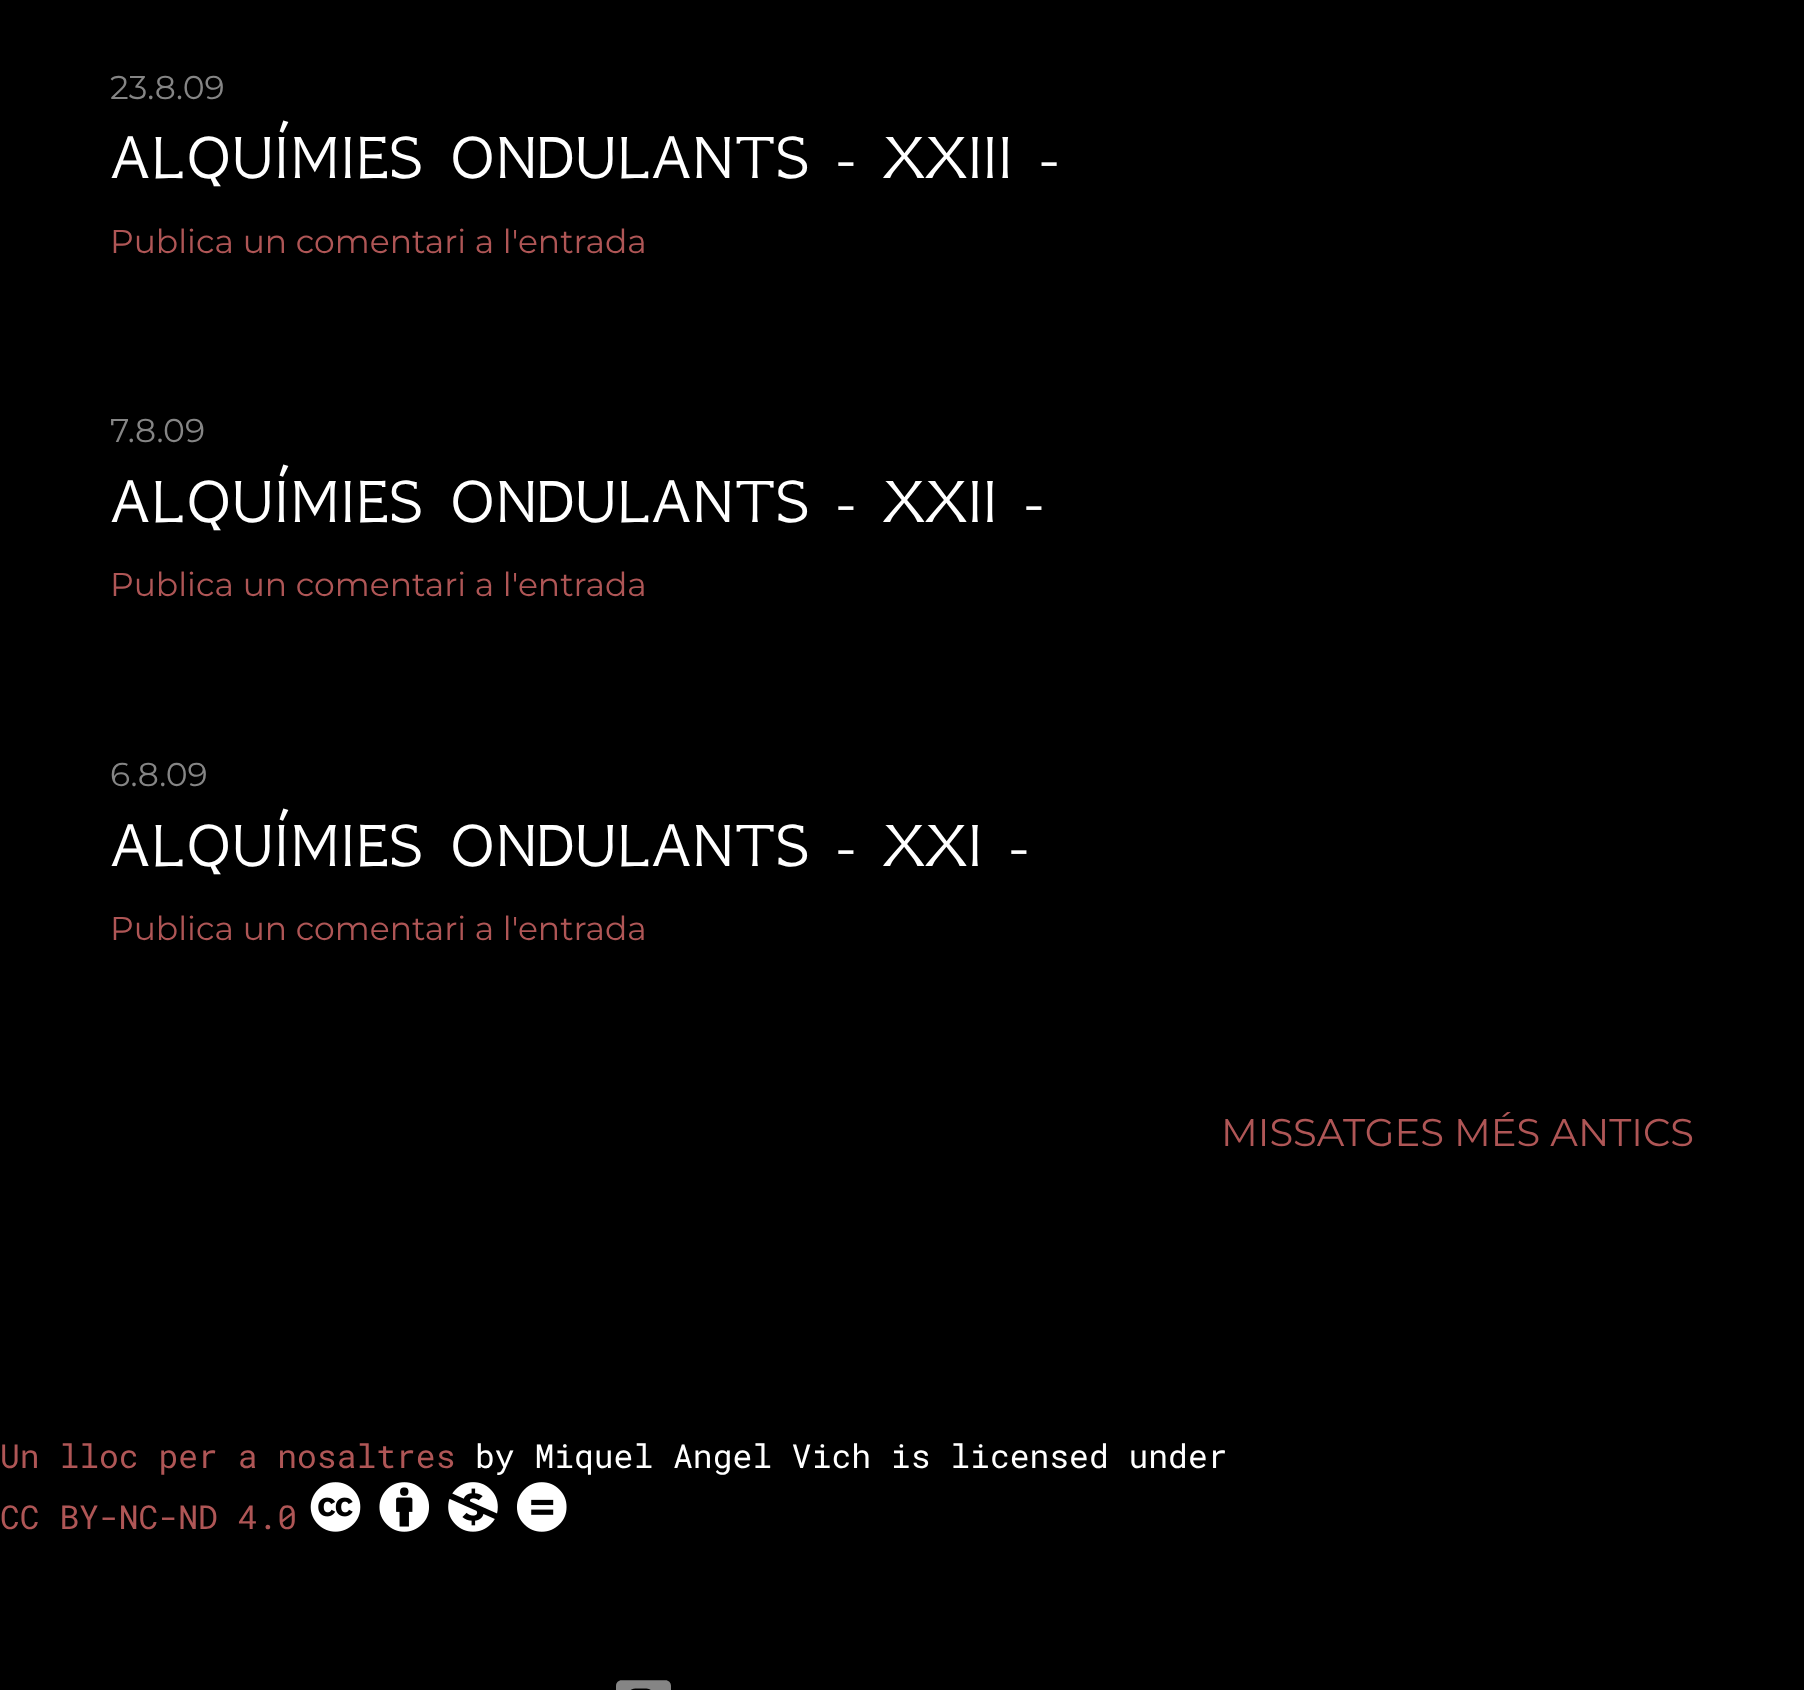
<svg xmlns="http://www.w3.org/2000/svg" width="1804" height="1690">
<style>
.a{font:100 33px Montserrat;fill:#858585}
.b{font:66px GFS Neohellenic;fill:#fff}
.c{font:100 33px Montserrat;fill:#af5656}
.d{font:100 38.5px Montserrat;fill:#af5656}
.e{font:33px Roboto Mono;fill:#af5656}
.f{font:33px Roboto Mono;fill:#fff}
</style>
<rect width="100%" height="100%" fill="#000"/>
<image href="1.png" x="310" y="1482" width="51" height="50"/>
<image href="2.png" x="379" y="1482" width="51" height="50"/>
<image href="3.png" x="448" y="1482" width="50" height="50"/>
<image href="4.png" x="516" y="1482" width="51" height="50"/>
<image href="5.png" x="616" y="1680" width="55" height="10"/>
<text class="a" x="110" y="99">23.8.09</text>
<text class="b" x="110" y="178">ALQUÍMIES ONDULANTS - XXIII -</text>
<text class="c" x="110" y="253">Publica un comentari a l'entrada</text>
<text class="a" x="110" y="442">7.8.09</text>
<text class="b" x="110" y="522">ALQUÍMIES ONDULANTS - XXII -</text>
<text class="c" x="110" y="596">Publica un comentari a l'entrada</text>
<text class="a" x="110" y="786">6.8.09</text>
<text class="b" x="110" y="866">ALQUÍMIES ONDULANTS - XXI -</text>
<text class="c" x="110" y="940">Publica un comentari a l'entrada</text>
<text class="d" x="1221" y="1146">MISSATGES MÉS ANTICS</text>
<text class="e" x="0" y="1468">Un lloc per a nosaltres</text>
<text class="f" x="475" y="1468">by Miquel Angel Vich is licensed under</text>
<text class="e" x="0" y="1529">CC BY-NC-ND 4.0</text>
</svg>
